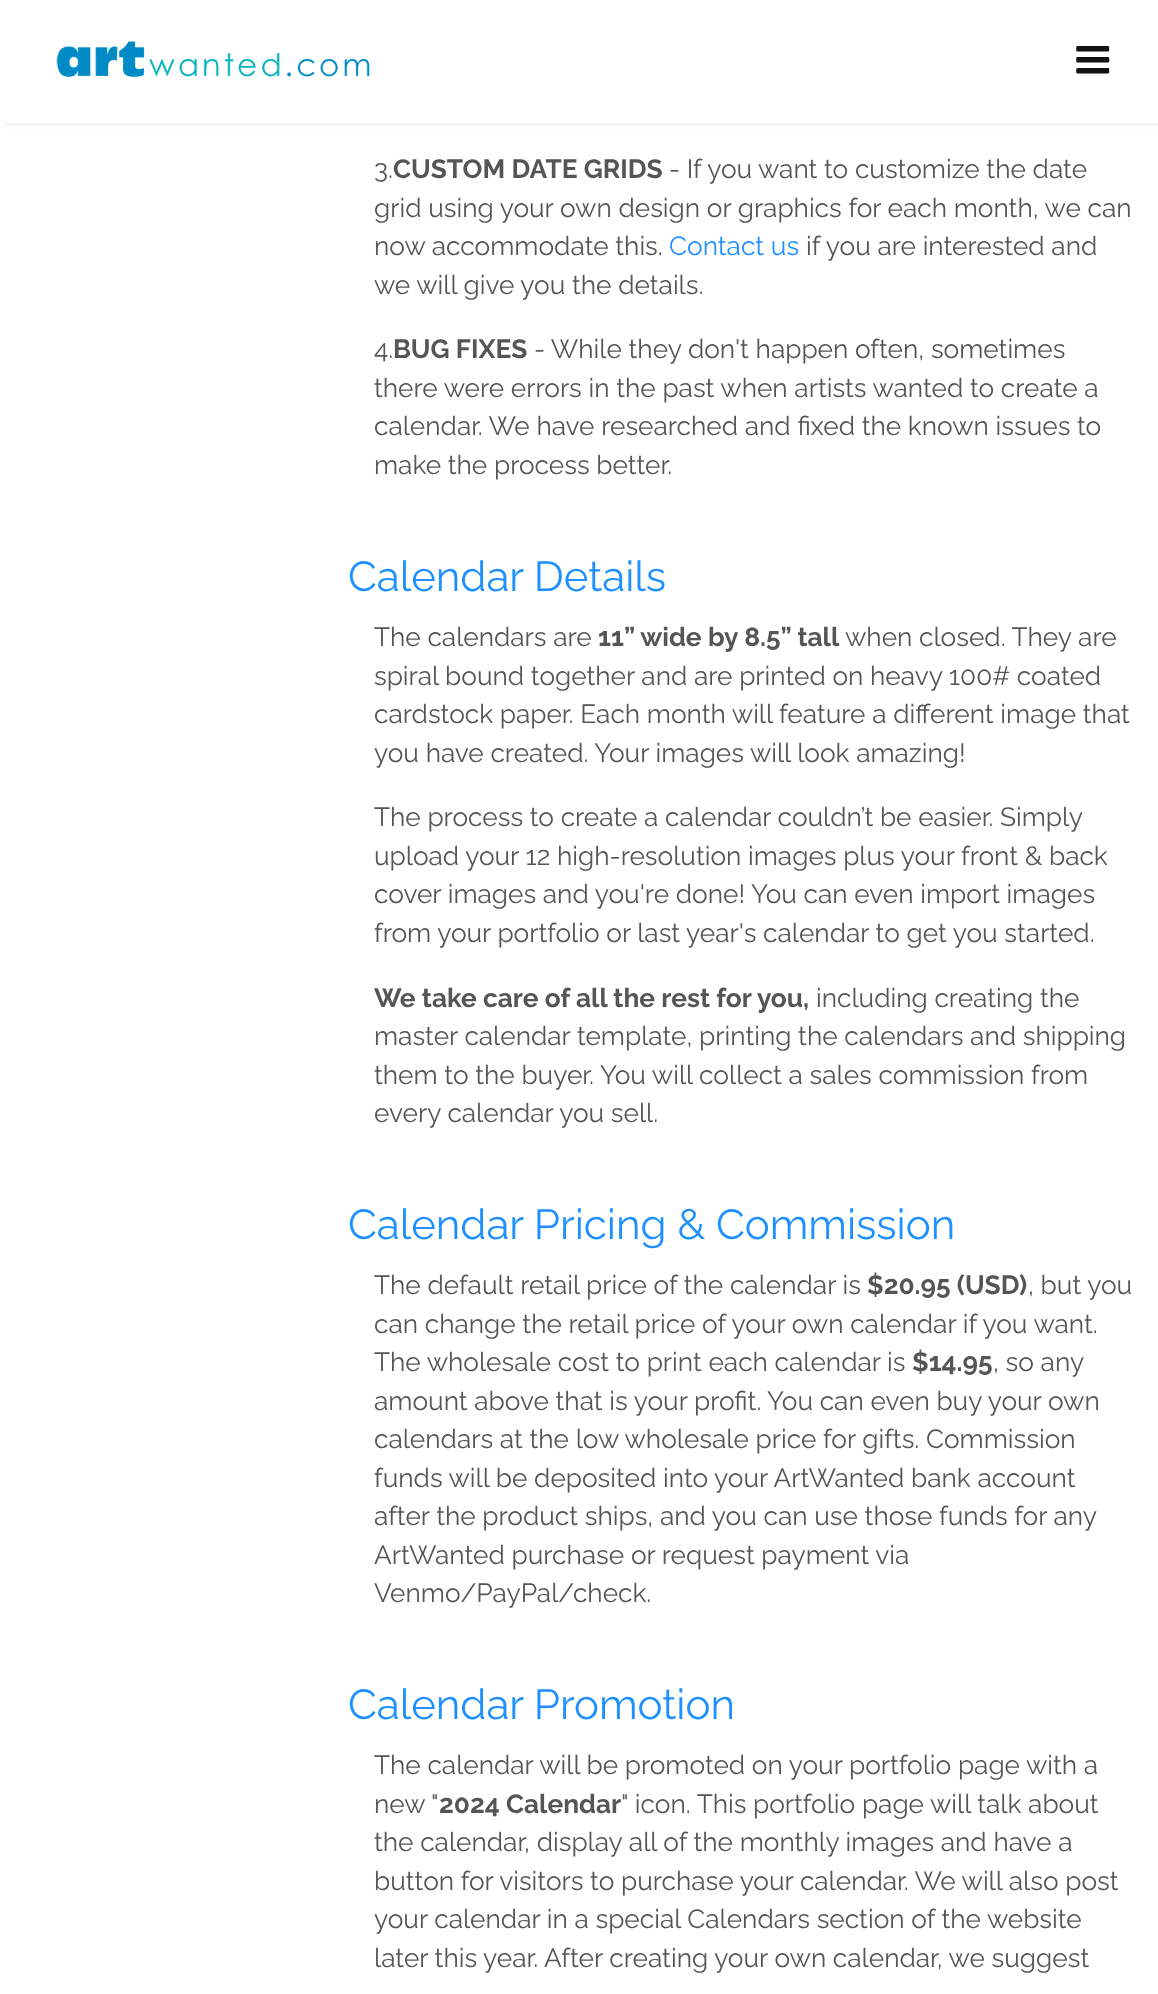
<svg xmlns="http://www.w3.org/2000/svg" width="1158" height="1994">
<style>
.a{font:26.25px Raleway;fill:#555}
.b{font:bold 26.25px Raleway;fill:#555}
.c{font:26.25px Raleway;fill:#1e90ff}
.d{font:42px Raleway;fill:#1e90ff}
</style>
<defs>
<clipPath id="clip1"><path d="M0 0h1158v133h-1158zm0 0h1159v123h-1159z" clip-rule="evenodd"/></clipPath>
</defs>
<rect width="100%" height="100%" fill="#fff"/>
<g clip-path="url(#clip1)">
<path fill="#0000000d" filter="blur(2px)" d="M4 4h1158v122H4z"/>
</g>
<path fill="#ffffffcc" d="M4 122h1154v1H4z"/>
<image href="1.png" x="56" y="41" width="314" height="36"/>
<image href="2.png" x="1076" y="46" width="34" height="28"/>
<text class="a" x="374" y="178">3.</text>
<text class="b" x="393" y="178">CUSTOM DATE GRIDS</text>
<text class="a" x="669" y="178">- If you want to customize the date</text>
<text class="a" x="374" y="217">grid using your own design or graphics for each month, we can</text>
<text class="a" x="374" y="255">now accommodate this.</text>
<text class="c" x="669" y="255">Contact us</text>
<text class="a" x="806" y="255">if you are interested and</text>
<text class="a" x="374" y="294">we will give you the details.</text>
<text class="a" x="374" y="358">4.</text>
<text class="b" x="393" y="358">BUG FIXES</text>
<text class="a" x="534" y="358">- While they don't happen often, sometimes</text>
<text class="a" x="374" y="397">there were errors in the past when artists wanted to create a</text>
<text class="a" x="374" y="435">calendar. We have researched and fixed the known issues to</text>
<text class="a" x="374" y="474">make the process better.</text>
<text class="d" x="348" y="591">Calendar Details</text>
<text class="a" x="374" y="646">The calendars are</text>
<text class="b" x="598" y="646">11” wide by 8.5” tall</text>
<text class="a" x="845" y="646">when closed. They are</text>
<text class="a" x="374" y="685">spiral bound together and are printed on heavy 100# coated</text>
<text class="a" x="374" y="723">cardstock paper. Each month will feature a different image that</text>
<text class="a" x="374" y="762">you have created. Your images will look amazing!</text>
<text class="a" x="374" y="826">The process to create a calendar couldn’t be easier. Simply</text>
<text class="a" x="374" y="865">upload your 12 high-resolution images plus your front &amp; back</text>
<text class="a" x="374" y="903">cover images and you're done!</text>
<text class="a" x="751" y="903">You can even import images</text>
<text class="a" x="374" y="942">from your portfolio or last year's calendar to get you started.</text>
<text class="b" x="374" y="1007">We take care of all the rest for you,</text>
<text class="a" x="816" y="1007">including creating the</text>
<text class="a" x="374" y="1045">master calendar template, printing the calendars and shipping</text>
<text class="a" x="374" y="1084">them to the buyer.</text>
<text class="a" x="600" y="1084">You will collect a sales commission from</text>
<text class="a" x="374" y="1122">every calendar you sell.</text>
<text class="d" x="348" y="1239">Calendar Pricing &amp; Commission</text>
<text class="a" x="374" y="1294">The default retail price of the calendar is</text>
<text class="b" x="867" y="1294">$20.95 (USD)</text>
<text class="a" x="1028" y="1294">, but you</text>
<text class="a" x="374" y="1333">can change the retail price of your own calendar if you want.</text>
<text class="a" x="374" y="1371">The wholesale cost to print each calendar is</text>
<text class="b" x="912" y="1371">$14.95</text>
<text class="a" x="993" y="1371">, so any</text>
<text class="a" x="374" y="1410">amount above that is your profit. You can even buy your own</text>
<text class="a" x="374" y="1448">calendars at the low wholesale price for gifts. Commission</text>
<text class="a" x="374" y="1487">funds will be deposited into your ArtWanted bank account</text>
<text class="a" x="374" y="1525">after the product ships, and you can use those funds for any</text>
<text class="a" x="374" y="1564">ArtWanted purchase or request payment via</text>
<text class="a" x="374" y="1602">Venmo/PayPal/check.</text>
<text class="d" x="348" y="1719">Calendar Promotion</text>
<text class="a" x="374" y="1774">The calendar will be promoted on your portfolio page with a</text>
<text class="a" x="374" y="1813">new "</text>
<text class="b" x="439" y="1813">2024 Calendar</text>
<text class="a" x="621" y="1813">" icon. This portfolio page will talk about</text>
<text class="a" x="374" y="1851">the calendar, display all of the monthly images and have a</text>
<text class="a" x="374" y="1890">button for visitors to purchase your calendar. We will also post</text>
<text class="a" x="374" y="1928">your calendar in a special Calendars section of the website</text>
<text class="a" x="374" y="1967">later this year. After creating your own calendar, we suggest</text>
</svg>
